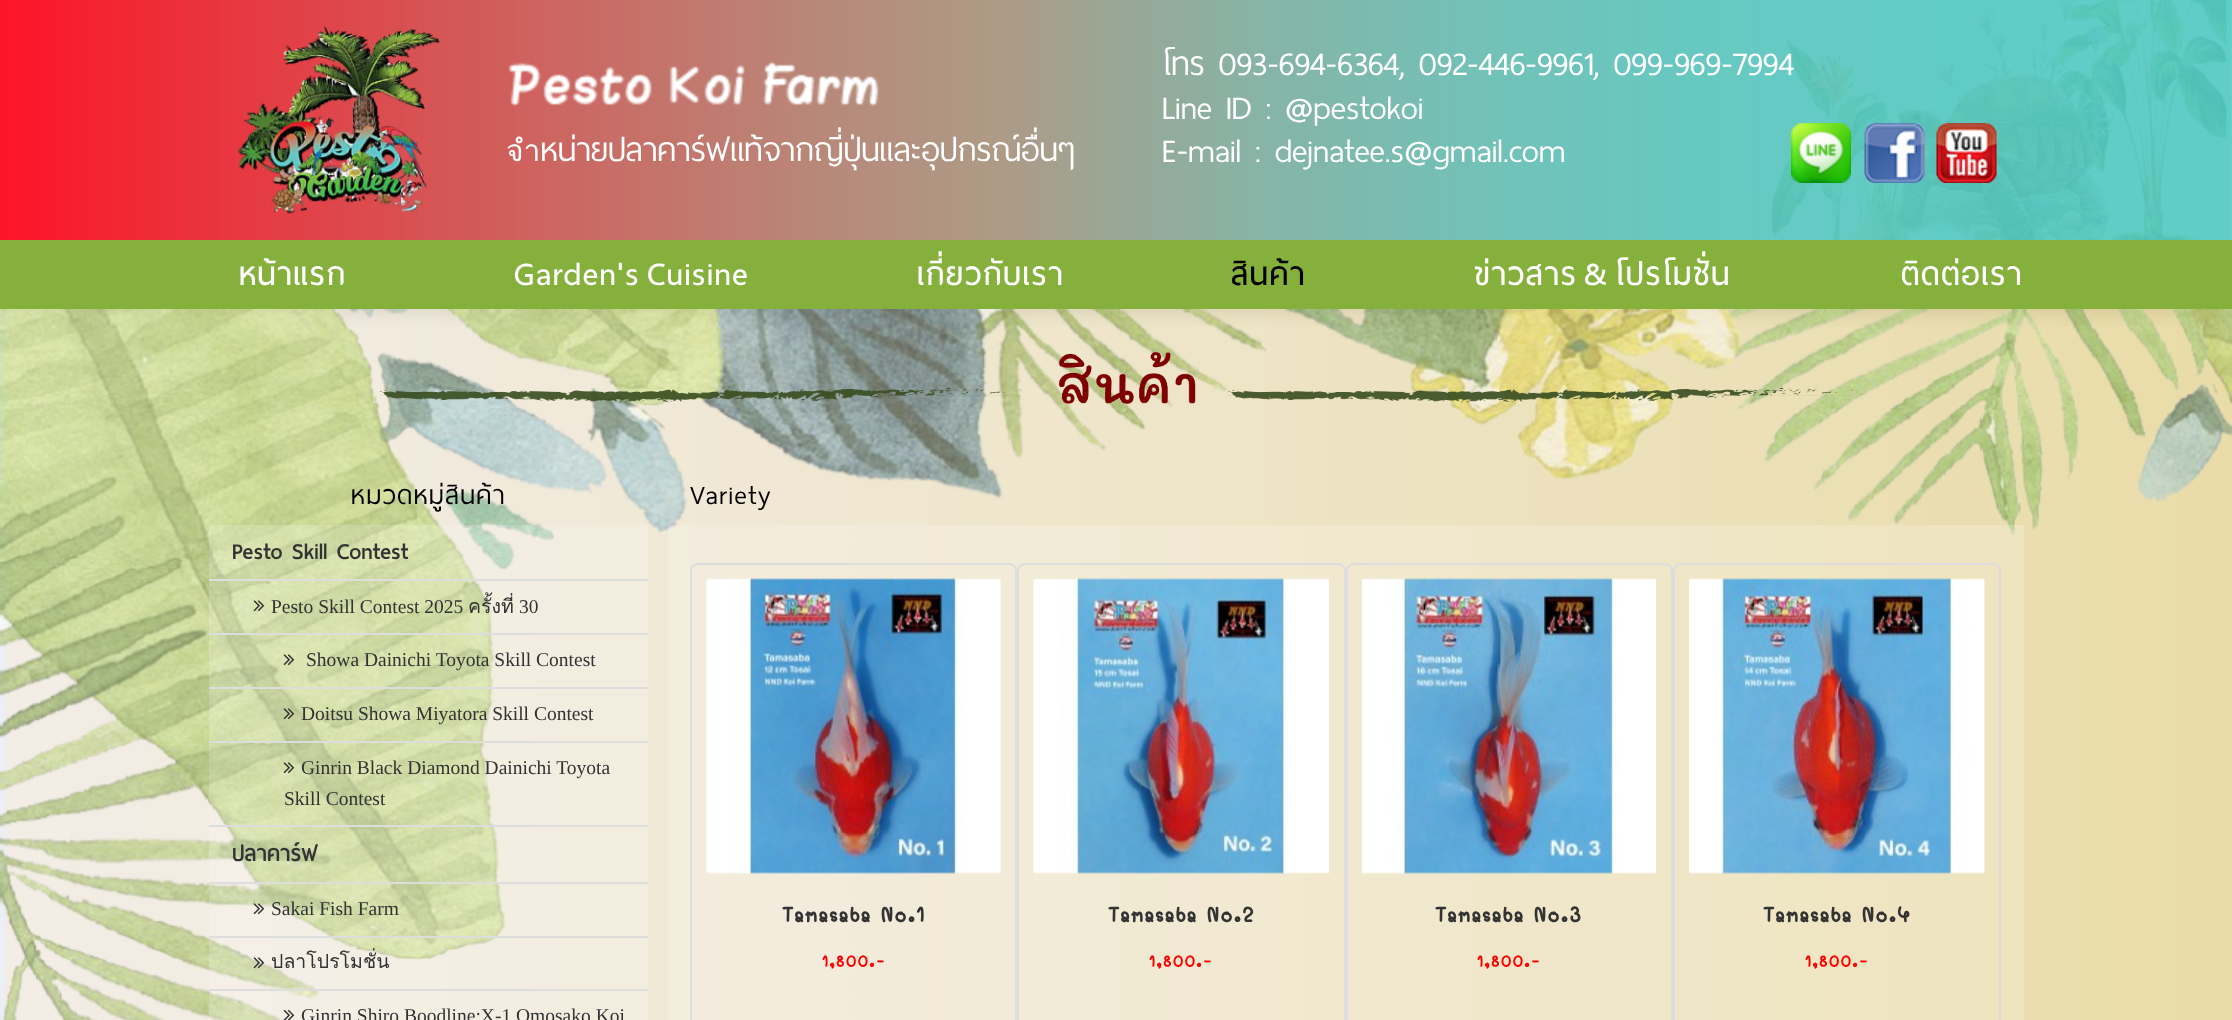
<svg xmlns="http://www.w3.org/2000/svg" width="2232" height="1020">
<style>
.a{font:30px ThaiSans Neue;fill:#fff}
.b{font:600 30px ThaiSans Neue;letter-spacing:1.5px;fill:#fff}
.c{font:600 30px ThaiSans Neue;letter-spacing:1.5px;fill:#000}
.d{font:24px ThaiSans Neue;letter-spacing:1.5px;fill:#000}
.e{font:bold 21px ThaiSans Neue;fill:#333}
.f{font:19.5px Liberation Serif;fill:#333}
.g{font:19.5px Loma;fill:#333}
.h{font:bold 30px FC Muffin;letter-spacing:1.5px;fill:#333}
.i{font:bold 22.5px FC Muffin;letter-spacing:1.5px;fill:#f00}
</style>
<defs>
<clipPath id="clip1"><path d="M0 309h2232v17H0z"/></clipPath>
</defs>
<rect width="100%" height="100%" fill="#eceff4"/>
<image href="1.png" x="0" y="0" width="2232" height="240"/>
<g clip-path="url(#clip1)">
<path fill="#0000004d" filter="blur(11px)" d="M0 0h2232v309H0z"/>
</g>
<image href="2.png" x="237" y="26" width="203" height="188"/>
<image href="3.png" x="508" y="61" width="371" height="46"/>
<image href="4.png" x="1791" y="123" width="60" height="60"/>
<image href="5.png" x="1864" y="123" width="61" height="60"/>
<image href="6.png" x="1936" y="123" width="61" height="60"/>
<path fill="#85b03c" d="M0 240h2232v69H0z"/>
<image href="7.png" x="0" y="309" width="2232" height="711"/>
<image href="8.png" x="379" y="352" width="1474" height="52"/>
<path fill="#ffffff33" d="M209 525h439v495H209z"/>
<path fill="#ddd" d="M209 579h439v2H209z"/>
<path fill="#ddd" d="M209 633h439v2H209z"/>
<image href="9.png" x="253" y="600" width="12" height="12"/>
<path fill="#ddd" d="M209 687h439v2H209z"/>
<image href="10.png" x="283" y="654" width="12" height="12"/>
<path fill="#ddd" d="M209 741h439v2H209z"/>
<image href="11.png" x="283" y="708" width="12" height="12"/>
<path fill="#ddd" d="M209 825h439v2H209z"/>
<image href="12.png" x="283" y="762" width="12" height="12"/>
<path fill="#ddd" d="M209 882h439v2H209z"/>
<path fill="#ddd" d="M209 936h439v2H209z"/>
<image href="13.png" x="253" y="903" width="12" height="12"/>
<path fill="#ddd" d="M209 989h439v2H209z"/>
<image href="14.png" x="253" y="957" width="12" height="12"/>
<image href="15.png" x="283" y="1009" width="12" height="11"/>
<path fill="#ffffff33" d="M668 525h1356v495H668z"/>
<rect fill="none" stroke="#ddd" stroke-width="2" x="691" y="564" width="325" height="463" rx="7"/>
<image href="16.png" x="706" y="578" width="295" height="296"/>
<rect fill="none" stroke="#ddd" stroke-width="2" x="1018" y="564" width="327" height="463" rx="7"/>
<image href="17.png" x="1033" y="578" width="296" height="296"/>
<rect fill="none" stroke="#ddd" stroke-width="2" x="1347" y="564" width="325" height="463" rx="7"/>
<image href="18.png" x="1362" y="578" width="294" height="296"/>
<rect fill="none" stroke="#ddd" stroke-width="2" x="1674" y="564" width="326" height="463" rx="7"/>
<image href="19.png" x="1689" y="578" width="296" height="296"/>
<text class="a" x="506" y="161">จำหน่ายปลาคาร์ฟแท้จากญี่ปุ่นและอุปกรณ์อื่นๆ</text>
<text class="a" x="1162" y="75">โทร 093-694-6364, 092-446-9961, 099-969-7994</text>
<text class="a" x="1162" y="119">Line ID : @pestokoi</text>
<text class="a" x="1162" y="162">E-mail : dejnatee.s@gmail.com</text>
<text class="b" x="239" y="285">หน้าแรก</text>
<text class="b" x="514" y="285" word-spacing="-8">Garden's Cuisine</text>
<text class="b" x="917" y="285">เกี่ยวกับเรา</text>
<text class="c" x="1231" y="285">สินค้า</text>
<text class="b" x="1474" y="285" word-spacing="-9">ข่าวสาร &amp; โปรโมชั่น</text>
<text class="b" x="1901" y="285">ติดต่อเรา</text>
<text class="d" x="351" y="504">หมวดหมู่สินค้า</text>
<text class="e" x="232" y="559">Pesto Skill Contest</text>
<text class="f" x="271" y="613">Pesto Skill Contest 2025</text>
<text class="g" x="468" y="613">ครั้งที่</text>
<text class="f" x="519" y="613">30</text>
<text class="f" x="306" y="666">Showa Dainichi Toyota Skill Contest</text>
<text class="f" x="301" y="720">Doitsu Showa Miyatora Skill Contest</text>
<text class="f" x="301" y="774">Ginrin Black Diamond Dainichi Toyota</text>
<text class="f" x="284" y="805">Skill Contest</text>
<text class="e" x="232" y="861">ปลาคาร์ฟ</text>
<text class="f" x="271" y="915">Sakai Fish Farm</text>
<text class="g" x="271" y="968">ปลาโปรโมชั่น</text>
<text class="f" x="301" y="1022">Ginrin Shiro Boodline:X-1 Omosako Koi</text>
<text class="d" x="690" y="504">Variety</text>
<text class="h" x="782" y="922">Tamasaba No.1</text>
<text class="i" x="822" y="967">1,800.-</text>
<text class="h" x="1108" y="922">Tamasaba No.2</text>
<text class="i" x="1149" y="967">1,800.-</text>
<text class="h" x="1435" y="922">Tamasaba No.3</text>
<text class="i" x="1477" y="967">1,800.-</text>
<text class="h" x="1763" y="922">Tamasaba No.4</text>
<text class="i" x="1805" y="967">1,800.-</text>
</svg>
